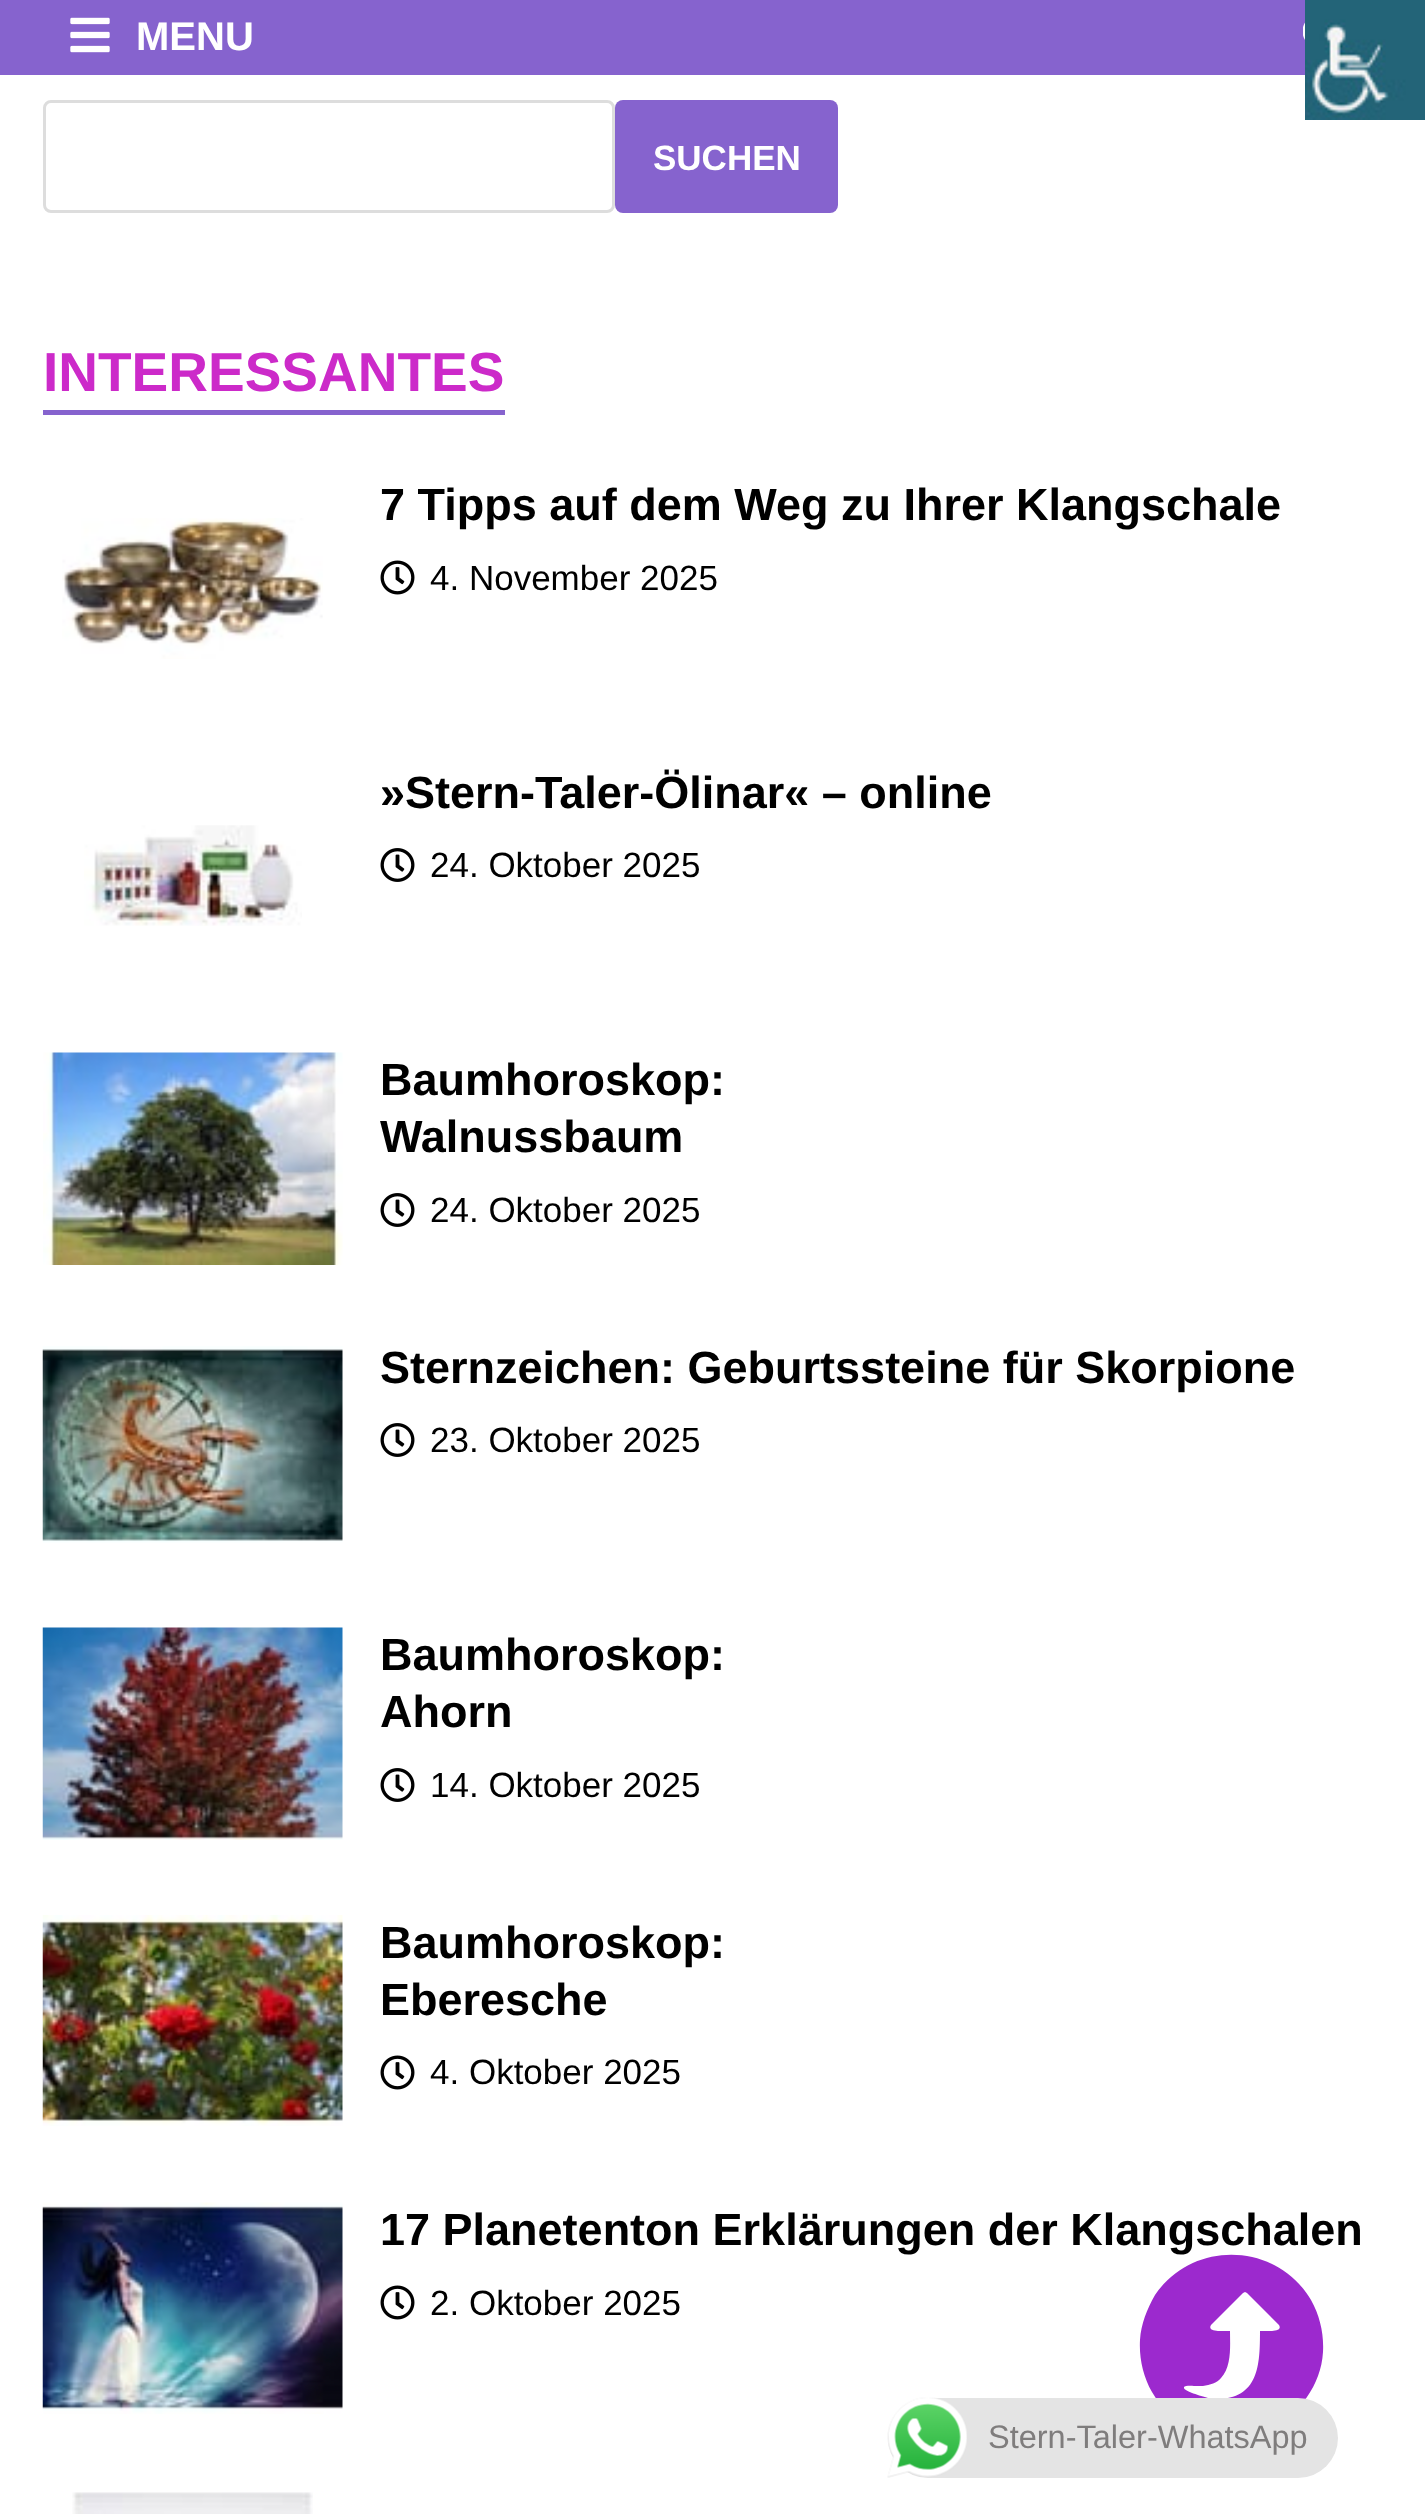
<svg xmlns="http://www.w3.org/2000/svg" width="1425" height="2514">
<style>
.a{font:bold 40px Liberation Sans;fill:#fff}
.b{font:bold 35px Liberation Sans;fill:#fff}
.c{font:bold 55px Liberation Sans;fill:#cc2ac9}
.d{font:bold 45px Liberation Sans;fill:#000}
.e{font:35px Liberation Sans;fill:#000}
.f{font:32.5px Liberation Sans;fill:#7f7d7d}
</style>
<rect width="100%" height="100%" fill="#fff"/>
<path fill="#8663ce" d="M0 0h1305v75H0z"/>
<image href="1.png" x="70" y="17" width="40" height="36"/>
<image href="2.png" x="1303" y="22" width="2" height="18"/>
<rect fill="none" stroke="#ddd" stroke-width="3" x="44.5" y="101.5" width="569" height="110" rx="6.5"/>
<rect fill="#8663ce" x="615" y="100" width="223" height="113" rx="8"/>
<path fill="#8663ce" d="M43 410h462v5H43z"/>
<image href="3.png" x="62" y="518" width="261" height="141"/>
<image href="4.png" x="380" y="560" width="35" height="35"/>
<image href="5.png" x="84" y="825" width="218" height="101"/>
<image href="6.png" x="380" y="848" width="35" height="34"/>
<image href="7.png" x="43" y="1052" width="300" height="213"/>
<image href="6.png" x="380" y="1193" width="35" height="34"/>
<image href="8.png" x="42" y="1346" width="301" height="197"/>
<image href="6.png" x="380" y="1423" width="35" height="34"/>
<image href="9.png" x="42" y="1627" width="301" height="213"/>
<image href="6.png" x="380" y="1768" width="35" height="34"/>
<image href="10.png" x="42" y="1915" width="301" height="211"/>
<image href="4.png" x="380" y="2055" width="35" height="35"/>
<image href="11.png" x="42" y="2202" width="301" height="212"/>
<image href="4.png" x="380" y="2285" width="35" height="35"/>
<image href="12.png" x="72" y="2492" width="241" height="22"/>
<image href="13.png" x="1305" y="0" width="120" height="120"/>
<text class="a" x="136" y="50">MENU</text>
<text class="b" x="653" y="170">SUCHEN</text>
<text class="c" x="43" y="391">INTERESSANTES</text>
<text class="d" x="380" y="520">7 Tipps auf dem Weg zu Ihrer Klangschale</text>
<text class="e" x="430" y="590">4. November 2025</text>
<text class="d" x="380" y="808">»Stern-Taler-Ölinar« – online</text>
<text class="e" x="430" y="877">24. Oktober 2025</text>
<text class="d" x="380" y="1095">Baumhoroskop:</text>
<text class="d" x="380" y="1152">Walnussbaum</text>
<text class="e" x="430" y="1222">24. Oktober 2025</text>
<text class="d" x="380" y="1383">Sternzeichen: Geburtssteine für Skorpione</text>
<text class="e" x="430" y="1452">23. Oktober 2025</text>
<text class="d" x="380" y="1670">Baumhoroskop:</text>
<text class="d" x="380" y="1727">Ahorn</text>
<text class="e" x="430" y="1797">14. Oktober 2025</text>
<text class="d" x="380" y="1958">Baumhoroskop:</text>
<text class="d" x="380" y="2015">Eberesche</text>
<text class="e" x="430" y="2084">4. Oktober 2025</text>
<text class="d" x="380" y="2245">17 Planetenton Erklärungen der Klangschalen</text>
<text class="e" x="430" y="2315">2. Oktober 2025</text>
<path fill="#9c29ce" d="M1311 2300c9 16 13 34 12 52c-1 17-7 32-16 45c-37 56-121 53-155-5c-9-16-13-34-12-52c1-16 7-31 15-45c38-56 122-53 156 5z"/>
<path fill="#fff" d="M1216 2399l-8-1c-7-2-24-7-24-10v-1c1-2 11-1 12-1h7c7-1 14-3 18-8c11-12 9-33 9-47h-8c-2 0-15 1-11-6l32-32l2-1l2 1l32 32c4 7-9 6-11 6h-8c0 34-1 68-44 68z"/>
<rect fill="#e4e4e4" x="888" y="2398" width="450" height="80" rx="40"/>
<image href="14.png" x="887" y="2397" width="80" height="81"/>
<text class="f" x="988" y="2448">Stern-Taler-WhatsApp</text>
</svg>
